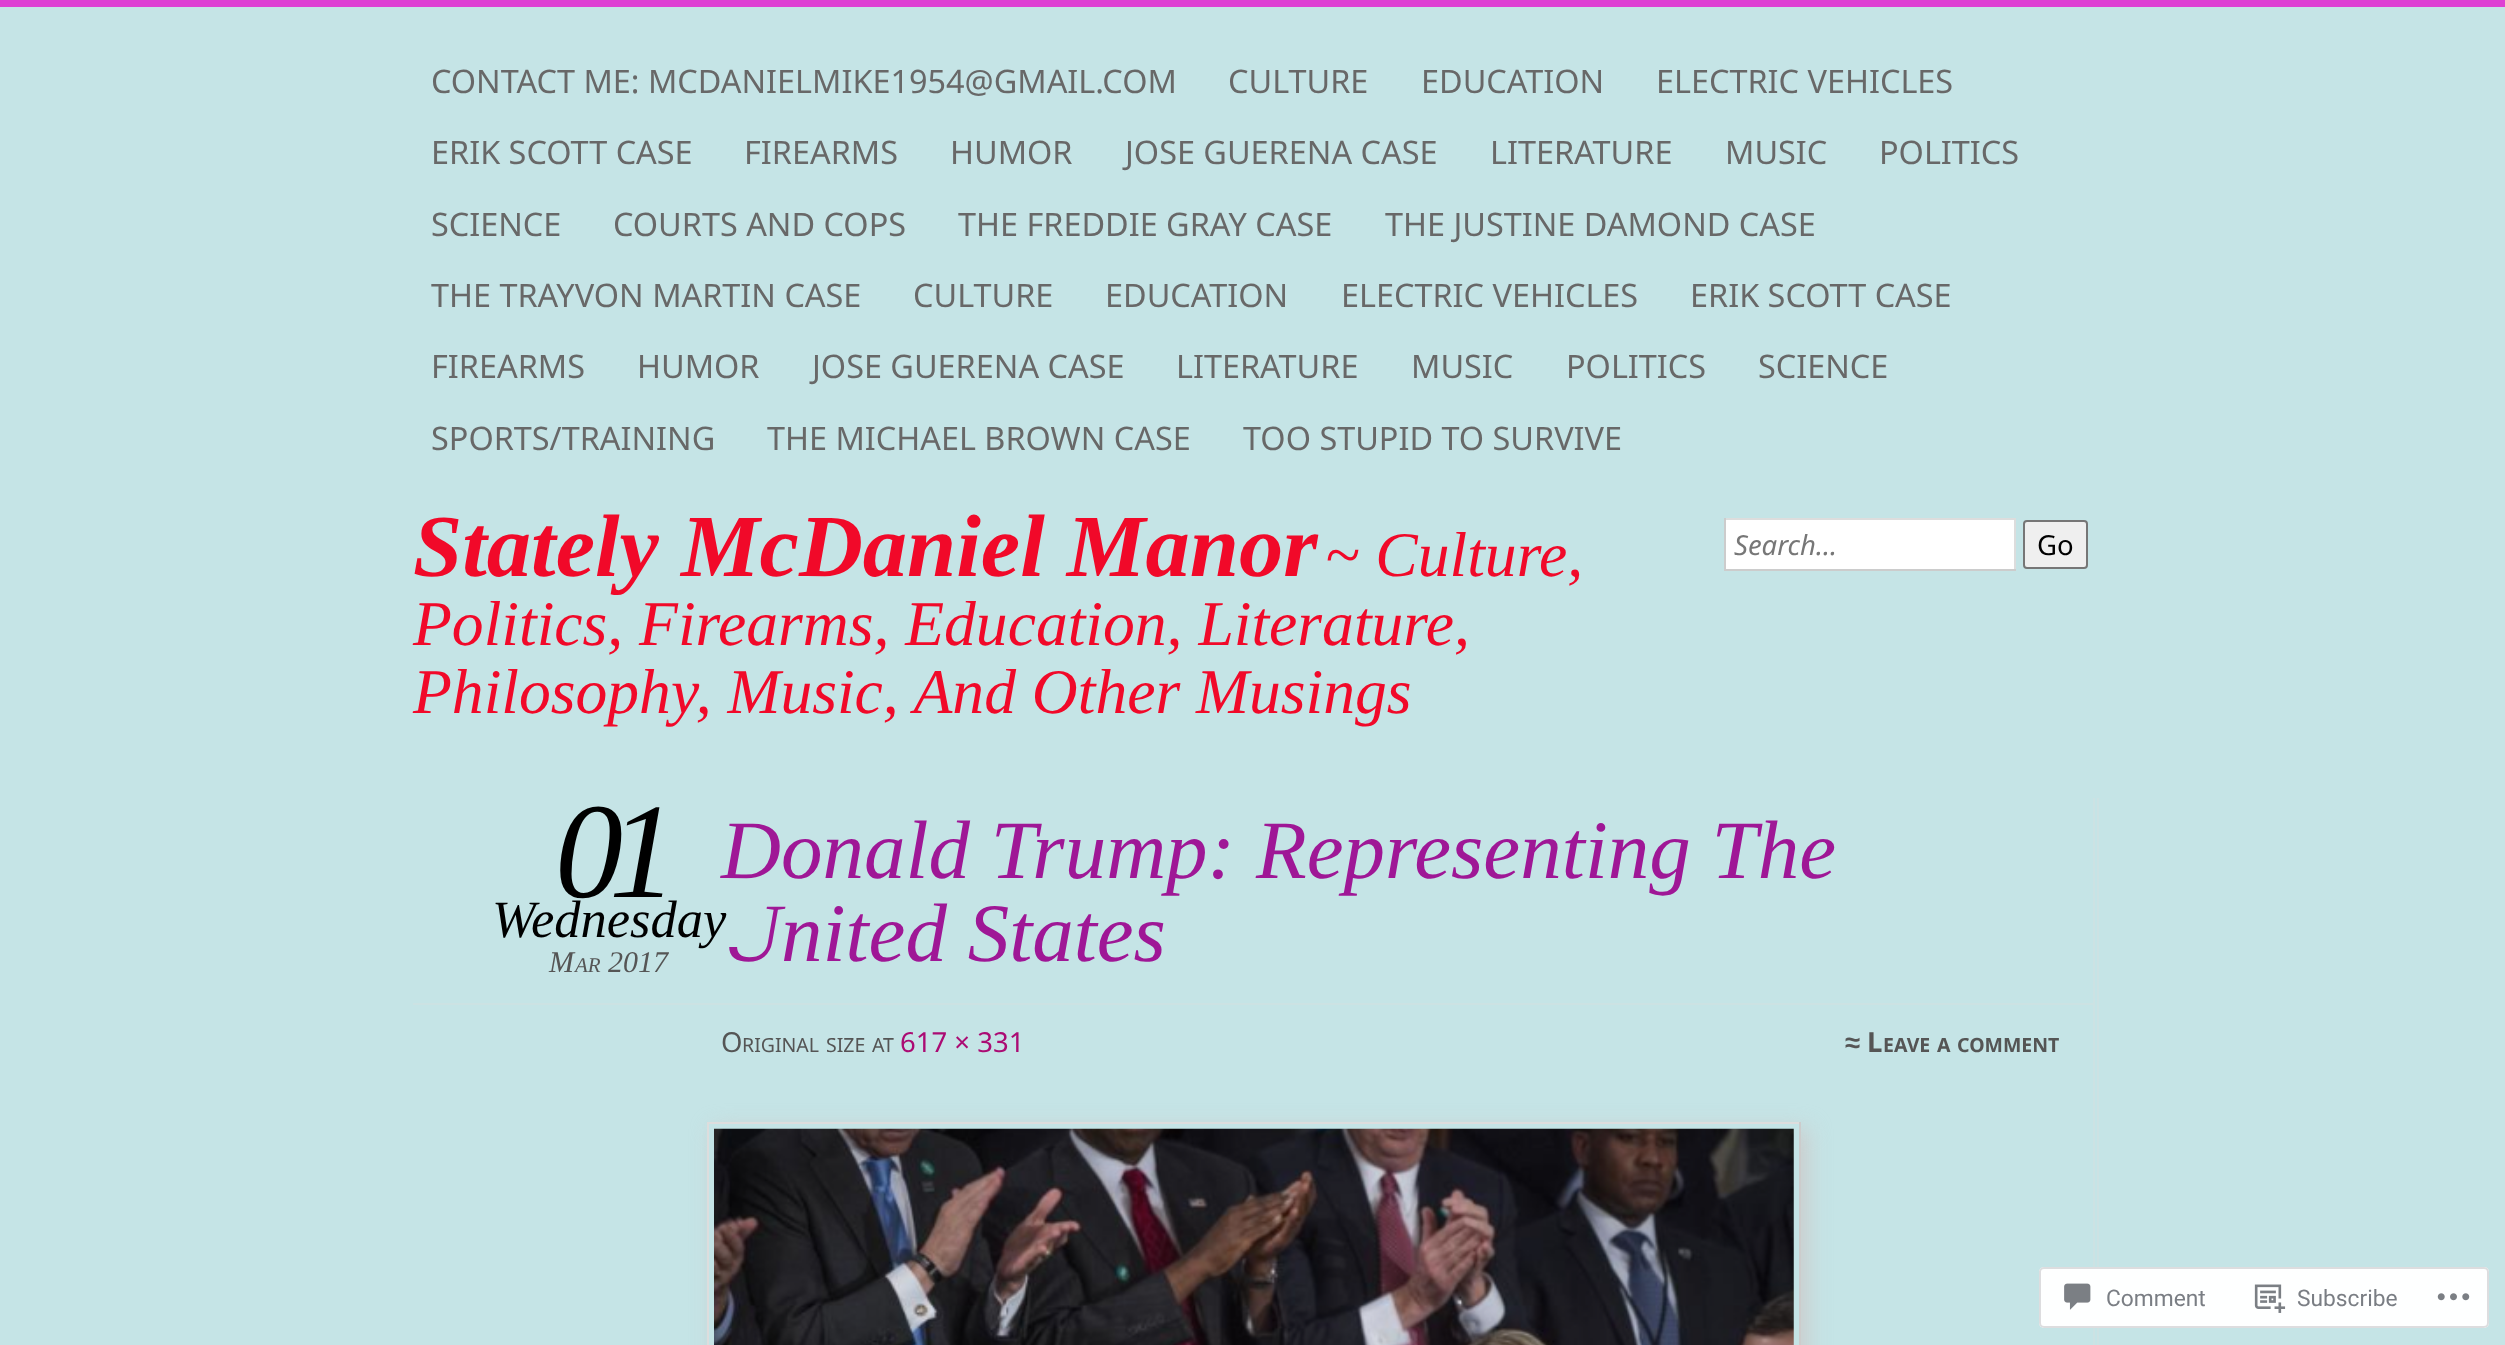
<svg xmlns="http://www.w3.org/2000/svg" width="2505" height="1345">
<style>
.a{font:32.4px Noto Sans;fill:#686868}
.b{font:italic bold 88.5px Liberation Serif;fill:#f10929}
.c{font:italic 63.6px Liberation Serif;fill:#f10929}
.d{font:italic 27.5px Noto Sans;fill:#777}
.e{font:27.5px Noto Sans;fill:#000}
.f{font:italic 136px Liberation Serif;letter-spacing:-14px;fill:#000}
.g{font:italic 52.5px Liberation Serif;fill:#000}
.h{font:italic 30px Liberation Serif;fill:#555}
.i{font:italic 21px Liberation Serif;fill:#555}
.j{font:italic 83px Liberation Serif;fill:#9f1796}
.k{font:27.5px Noto Sans;fill:#555}
.l{font:19.5px Noto Sans;fill:#555}
.m{font:27.5px Noto Sans;fill:#ab0b73}
.n{font:bold 27.5px Liberation Sans;fill:#555}
.o{font:bold 27.5px Noto Sans;fill:#555}
.p{font:bold 19.5px Noto Sans;fill:#555}
.q{font:22.75px Roboto;fill:#7a7e84}
</style>
<defs>
<clipPath id="clip1"><path d="M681 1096h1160v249h-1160zm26 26h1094v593h-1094z" clip-rule="evenodd"/></clipPath>
</defs>
<rect width="100%" height="100%" fill="#c5e4e6"/>
<path fill="#de40d3" d="M0 0h2505v7H0z"/>
<path fill="#fff" d="M1726 520h288v49H1726z"/>
<path fill="#ddd" d="M1724 518h292v2H1724z"/>
<path fill="#ddd" d="M2014 518h2v53H2014z"/>
<path fill="#ccc" d="M1724 569h292v2H1724z"/>
<path fill="#ccc" d="M1724 518h2v53H1724z"/>
<rect fill="#efefef" stroke="#767676" stroke-width="2" x="2024" y="521" width="63" height="47" rx="3"/>
<path fill="#cce2e3" d="M2093 798h2v547H2093z"/>
<path fill="#cce2e3" d="M2097 798h2v547H2097z"/>
<path fill="#cce2e3" d="M413 1003h1680v2H413z"/>
<g clip-path="url(#clip1)">
<path fill="#ccc" filter="blur(10.5px)" d="M714 1129h1094v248H714z"/>
</g>
<path fill="#ddd" d="M707 1122h1094v2H707z"/>
<path fill="#ccc" d="M1799 1122h2v223H1799z"/>
<path fill="#ddd" d="M707 1122h2v223H707z"/>
<image href="1.png" x="714" y="1128" width="1080" height="217"/>
<rect fill="#fffffffa" x="2039" y="1267" width="450" height="61" rx="5"/>
<rect fill="none" stroke="#dcdcdefa" stroke-width="2" x="2040" y="1268" width="448" height="59" rx="4"/>
<image href="2.png" x="2064" y="1283" width="27" height="27"/>
<image href="3.png" x="2254" y="1284" width="32" height="29"/>
<image href="4.png" x="2437" y="1293" width="33" height="8"/>
<text class="a" x="431" y="93">CONTACT ME: MCDANIELMIKE1954@GMAIL.COM</text>
<text class="a" x="1228" y="93">CULTURE</text>
<text class="a" x="1421" y="93">EDUCATION</text>
<text class="a" x="1656" y="93">ELECTRIC VEHICLES</text>
<text class="a" x="431" y="164">ERIK SCOTT CASE</text>
<text class="a" x="744" y="164">FIREARMS</text>
<text class="a" x="950" y="164">HUMOR</text>
<text class="a" x="1125" y="164">JOSE GUERENA CASE</text>
<text class="a" x="1490" y="164">LITERATURE</text>
<text class="a" x="1725" y="164">MUSIC</text>
<text class="a" x="1879" y="164">POLITICS</text>
<text class="a" x="431" y="236">SCIENCE</text>
<text class="a" x="613" y="236">COURTS AND COPS</text>
<text class="a" x="958" y="236">THE FREDDIE GRAY CASE</text>
<text class="a" x="1385" y="236">THE JUSTINE DAMOND CASE</text>
<text class="a" x="431" y="307">THE TRAYVON MARTIN CASE</text>
<text class="a" x="913" y="307">CULTURE</text>
<text class="a" x="1105" y="307">EDUCATION</text>
<text class="a" x="1341" y="307">ELECTRIC VEHICLES</text>
<text class="a" x="1690" y="307">ERIK SCOTT CASE</text>
<text class="a" x="431" y="378">FIREARMS</text>
<text class="a" x="637" y="378">HUMOR</text>
<text class="a" x="812" y="378">JOSE GUERENA CASE</text>
<text class="a" x="1176" y="378">LITERATURE</text>
<text class="a" x="1411" y="378">MUSIC</text>
<text class="a" x="1566" y="378">POLITICS</text>
<text class="a" x="1758" y="378">SCIENCE</text>
<text class="a" x="431" y="450">SPORTS/TRAINING</text>
<text class="a" x="767" y="450">THE MICHAEL BROWN CASE</text>
<text class="a" x="1243" y="450">TOO STUPID TO SURVIVE</text>
<text class="b" x="413" y="576">Stately McDaniel Manor</text>
<text class="c" x="1325" y="576">~ Culture,</text>
<text class="c" x="413" y="645">Politics, Firearms, Education, Literature,</text>
<text class="c" x="413" y="713">Philosophy, Music, And Other Musings</text>
<text class="d" x="1734" y="555">Search…</text>
<text class="e" x="2037" y="555">Go</text>
<text class="f" x="555" y="897">01</text>
<text class="g" x="492" y="937">Wednesday</text>
<text class="h" x="549" y="972">M</text>
<text class="i" x="575" y="972">AR</text>
<text class="h" x="608" y="972">2017</text>
<text class="j" x="721" y="878">Donald Trump: Representing The</text>
<text class="j" x="721" y="961">United States</text>
<path fill="#c5e4e6" d="M728 906h23v41H728z"/>
<text class="k" x="721" y="1052">O</text>
<text class="l" x="742" y="1052">RIGINAL</text>
<text class="l" x="826" y="1052">SIZE</text>
<text class="l" x="872" y="1052">AT</text>
<text class="m" x="900" y="1052">617 × 331</text>
<text class="n" x="1845" y="1052">≈</text>
<text class="o" x="1867" y="1052">L</text>
<text class="p" x="1883" y="1052">EAVE</text>
<text class="p" x="1937" y="1052">A</text>
<text class="p" x="1957" y="1052">COMMENT</text>
<text class="q" x="2106" y="1306">Comment</text>
<text class="q" x="2297" y="1306">Subscribe</text>
</svg>
